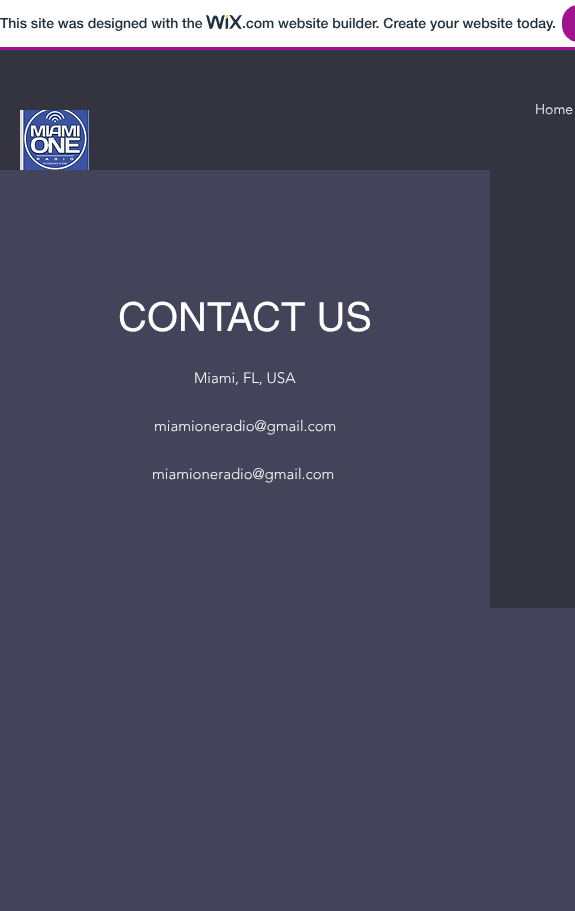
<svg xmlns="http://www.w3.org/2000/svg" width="575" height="911">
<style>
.a{font:500 14px 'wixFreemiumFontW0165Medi';fill:#20303c}
.b{font:300 14px 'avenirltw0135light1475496';fill:#fff}
.c{font:40px helvetica;fill:#fff}
.d{font:300 15px 'avenirltw0135light1475496';fill:#fff}
</style>
<rect width="100%" height="100%" fill="#fff"/>
<path fill="#a0138e" d="M0 47h575v3H0z"/>
<image href="1.png" x="206" y="15" width="36" height="15"/>
<rect fill="#a0138e" stroke="#a0138e" x="562.5" y="5.5" width="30" height="36" rx="16.5"/>
<path fill="#33343f" d="M0 50h575v558H0z"/>
<image href="2.png" x="20" y="110" width="69" height="60"/>
<path fill="#434459" d="M0 170h490v438H0z"/>
<path fill="#434459" d="M0 608h575v303H0z"/>
<text class="a" x="0" y="28">This site was designed with the</text>
<text class="a" x="242" y="28">.com website builder. Create your website today.</text>
<text class="b" x="535" y="114">Home</text>
<text class="c" x="118" y="331">CONTACT US</text>
<text class="d" x="194" y="383">Miami, FL, USA</text>
<text class="d" x="154" y="431">miamioneradio@gmail.com</text>
<text class="d" x="152" y="479">miamioneradio@gmail.com</text>
</svg>
